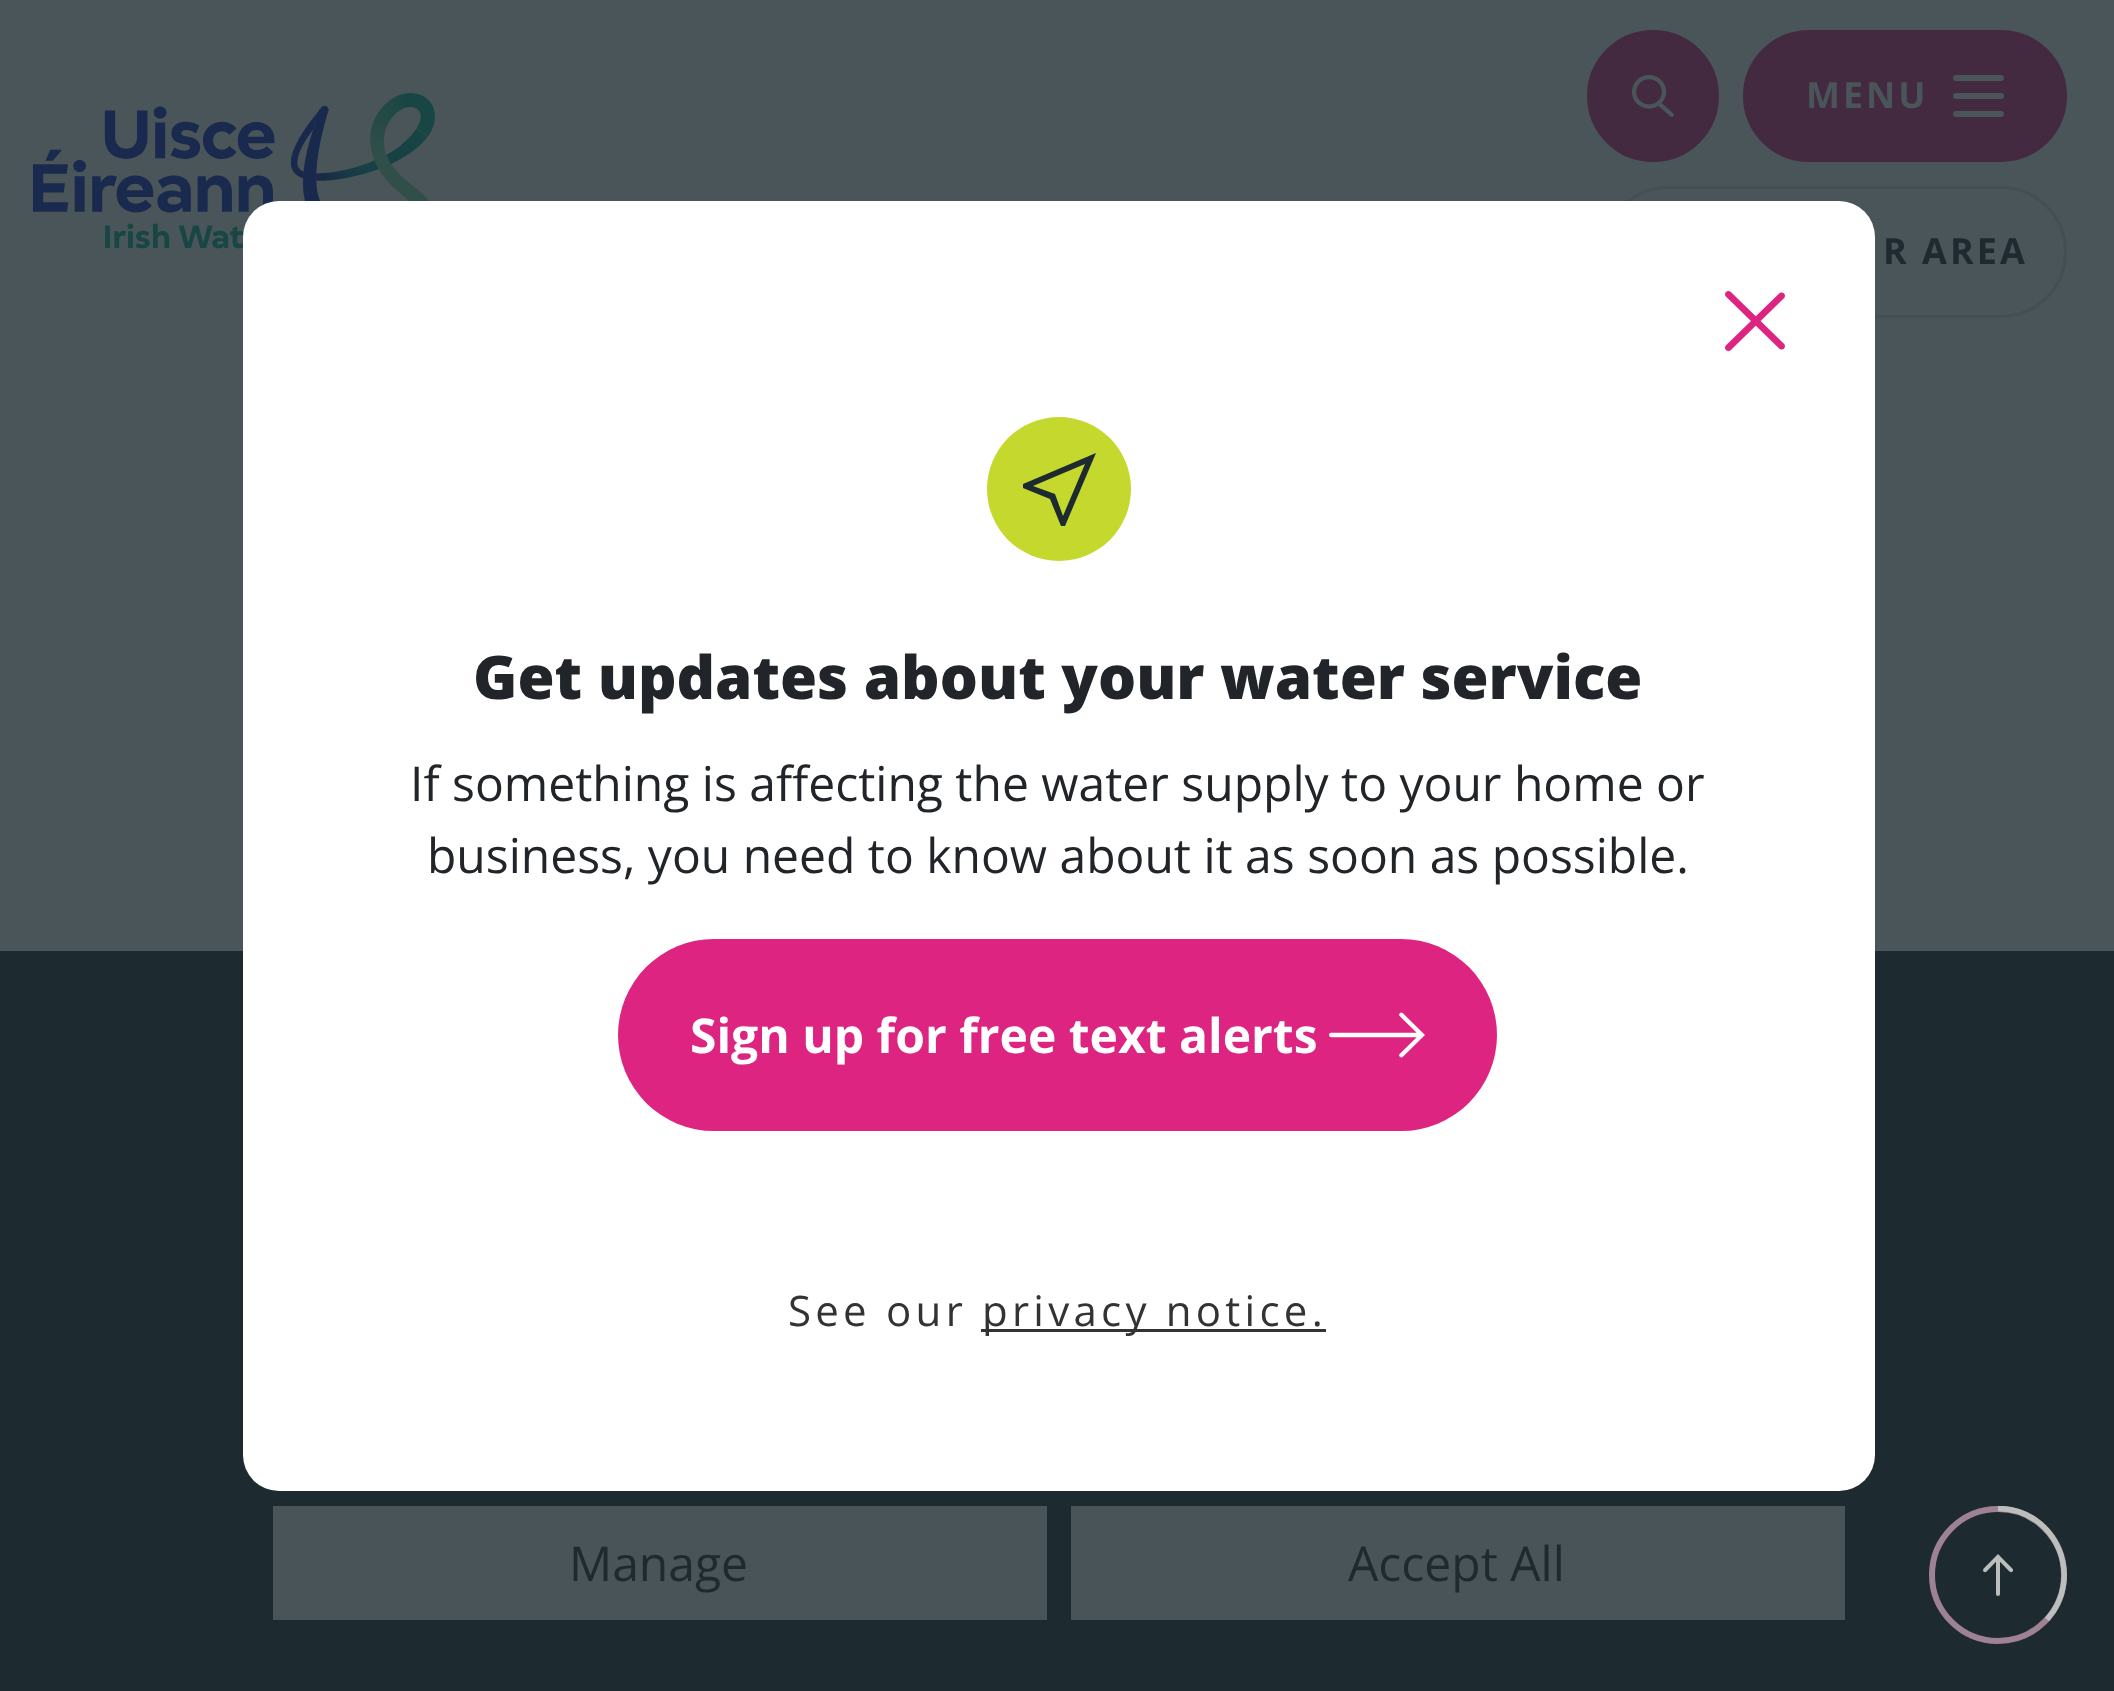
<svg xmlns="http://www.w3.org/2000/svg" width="2114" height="1691">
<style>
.a{font:bold 36px Open Sans;letter-spacing:3px;fill:#4a5559}
.b{font:bold 36px Open Sans;letter-spacing:3px;fill:#1e2a2f}
.c{font:800 60px Open Sans;fill:#212529}
.d{font:48px Open Sans;fill:#212529}
.e{font:bold 48px Open Sans;fill:#fff}
.f{font:42px Open Sans;letter-spacing:4.25px;fill:#333}
.g{font:48px Open Sans;fill:#1e2a2f}
</style>
<defs>
<clipPath id="clip1"><path d="M1929 1506h138v138H1929z"/></clipPath>
</defs>
<rect width="100%" height="100%" fill="#4a5559"/>
<image href="1.png" x="33" y="93" width="402" height="156"/>
<circle fill="#432a40" stroke="#432a40" stroke-width="3" cx="1653" cy="96" r="64.5"/>
<image href="2.png" x="1632" y="75" width="42" height="42"/>
<rect fill="#432a40" stroke="#432a40" stroke-width="3" x="1744.5" y="31.5" width="321" height="129" rx="64.5"/>
<rect fill="#4a5559" x="1953" y="75" width="51" height="6" rx="3"/>
<rect fill="#4a5559" x="1953" y="93" width="51" height="6" rx="3"/>
<rect fill="#4a5559" x="1953" y="111" width="51" height="6" rx="3"/>
<rect fill="none" stroke="#434f53" stroke-width="3" x="1603.5" y="187.5" width="462" height="129" rx="64.5"/>
<path fill="#1d2b30" d="M0 951h2114v740H0z"/>
<rect fill="#fff" x="243" y="201" width="1632" height="1290" rx="36"/>
<image href="3.png" x="1725" y="291" width="60" height="60"/>
<circle fill="#c4d82e" cx="1059" cy="489" r="72"/>
<path fill="#1d2b30" fill-rule="evenodd" d="M1096 453l-73 31v4l27 11l11 27h4zm-11 11l-22 52l-8-22l-22-8z"/>
<rect fill="#dd2480" x="618" y="939" width="879" height="192" rx="96"/>
<image href="4.png" x="1329" y="1012" width="96" height="46"/>
<path fill="#333" d="M981 1329h345v3H981z"/>
<circle fill="none" stroke="#9e8294" stroke-width="6" cx="1998" cy="1575" r="66"/>
<g clip-path="url(#clip1)">
<path fill="none" stroke="#bcbebd" stroke-width="5.4" d="M1998 1508.5c58 0 87 69 49 111"/>
</g>
<image href="5.png" x="1983" y="1554" width="30" height="42"/>
<path fill="#495458" d="M273 1506h774v114H273z"/>
<path fill="#495458" d="M1071 1506h774v114H1071z"/>
<text class="a" x="1806" y="108">MENU</text>
<text class="b" x="1883" y="264">R AREA</text>
<text class="c" x="473" y="699">Get updates about your water service</text>
<text class="d" x="410" y="801">If something is affecting the water supply to your home or</text>
<text class="d" x="427" y="873">business, you need to know about it as soon as possible.</text>
<text class="e" x="690" y="1053">Sign up for free text alerts</text>
<text class="f" x="788" y="1326">See our</text>
<text class="f" x="982" y="1326">privacy notice.</text>
<text class="g" x="569" y="1581">Manage</text>
<text class="g" x="1348" y="1581">Accept All</text>
</svg>
